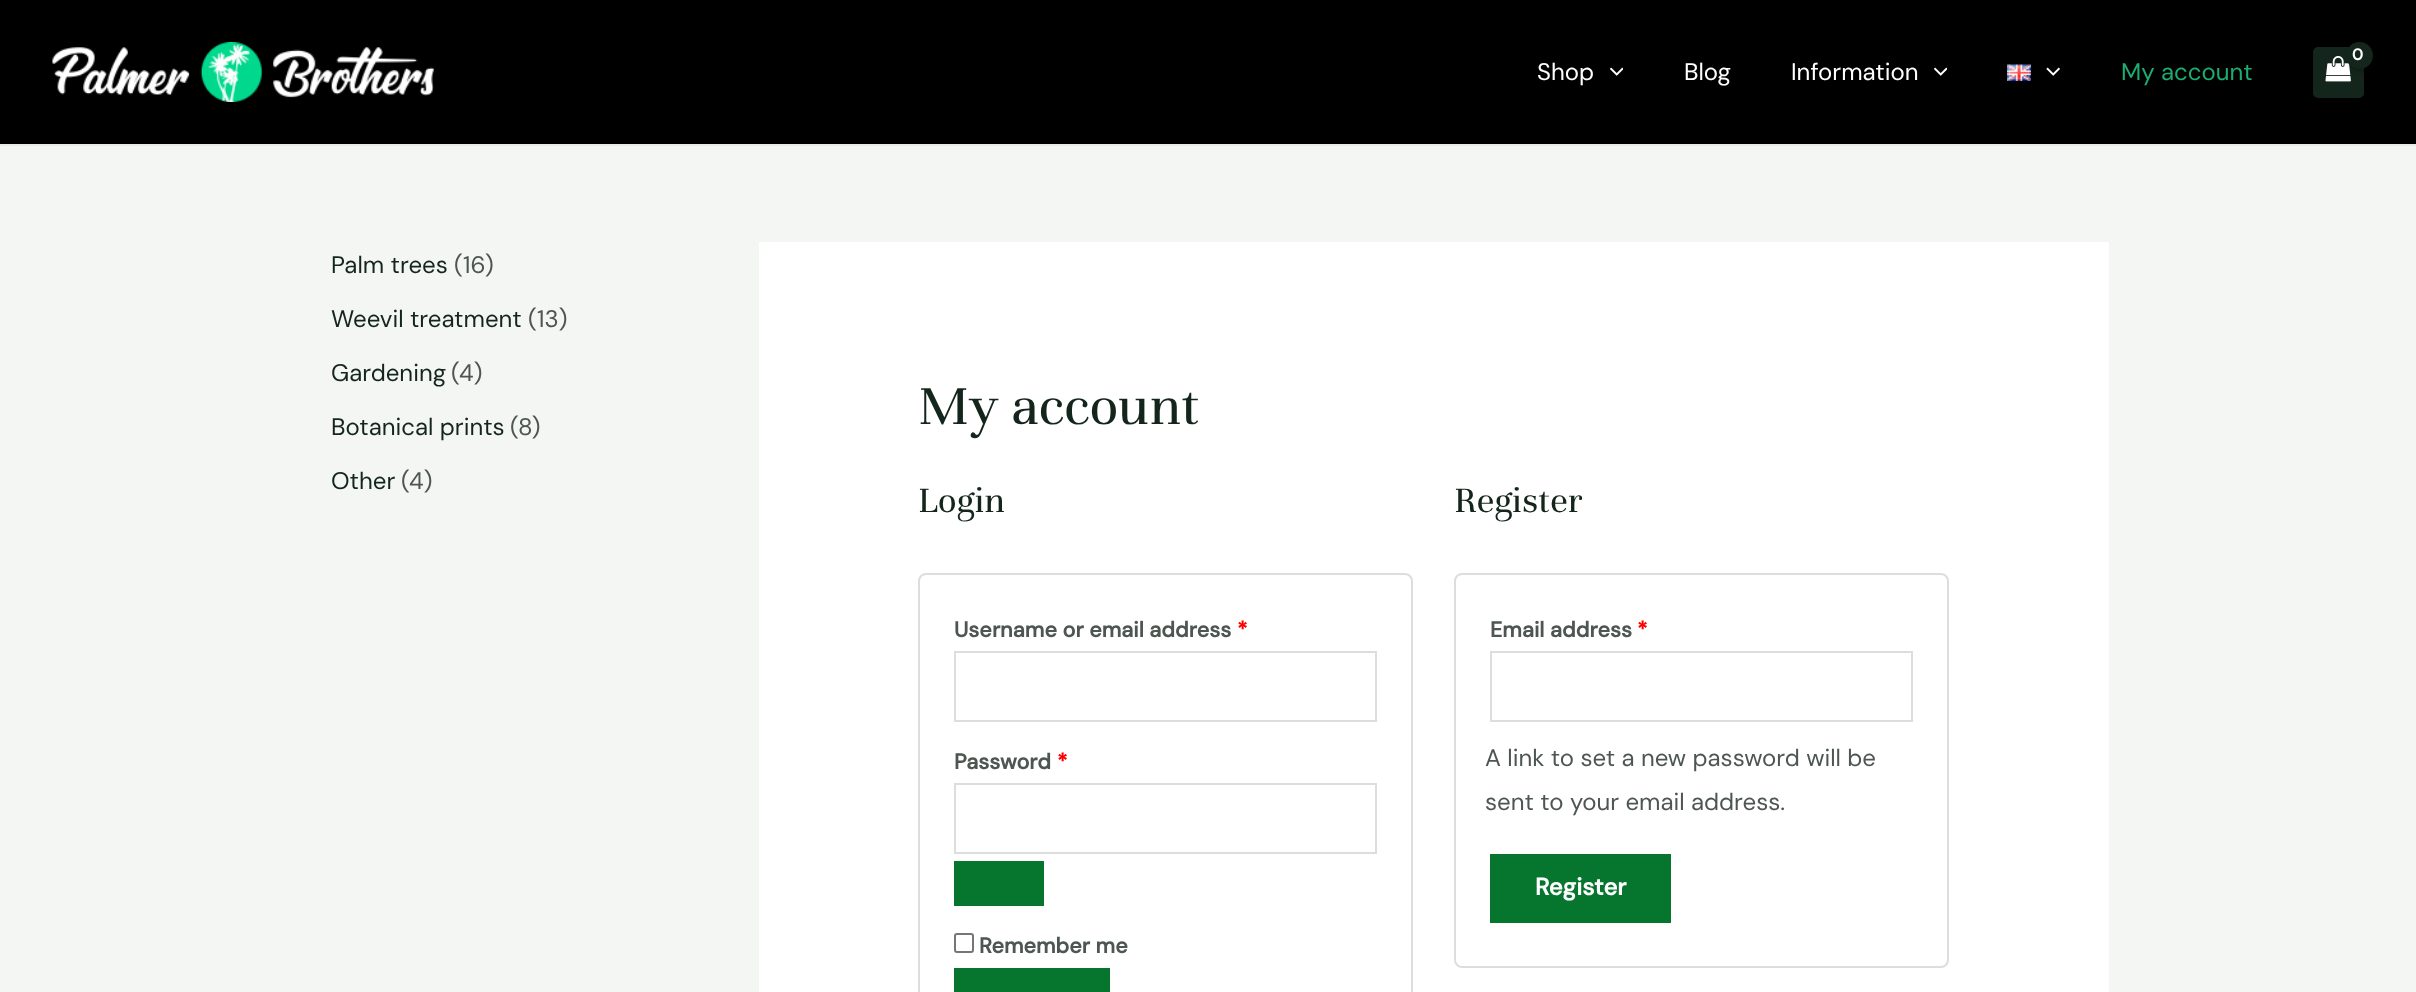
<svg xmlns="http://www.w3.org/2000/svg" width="2416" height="992">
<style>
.a{font:bold 16px DM Sans;letter-spacing:-1px;fill:#fff}
.b{font:24px DM Sans;fill:#fff}
.c{font:24px DM Sans;fill:#1bae70}
.d{font:24px DM Sans;fill:#14261c}
.e{font:24px DM Sans;fill:#4e5652}
.f{font:60px Unna;fill:#14261c}
.g{font:39px Unna;fill:#14261c}
.h{font:bold 21.6px DM Sans;fill:#4e5652}
.i{font:bold 21.6px DM Sans;fill:#f00}
.j{font:bold 24px DM Sans;fill:#fff}
</style>
<rect width="100%" height="100%" fill="#f4f6f4"/>
<path fill="#000" d="M0 0h2416v144H0z"/>
<path fill="#eaeaea" d="M0 144h2416v2H0z"/>
<image href="1.png" x="52" y="42" width="382" height="60"/>
<rect fill="#14261c" x="2313" y="47" width="51" height="51" rx="5"/>
<image href="2.png" x="2325" y="56" width="26" height="26"/>
<rect fill="#0000004d" filter="blur(2px)" x="2348" y="44" width="27" height="27" rx="13.5"/>
<circle fill="#14261c" cx="2359.5" cy="55.5" r="13.5"/>
<image href="3.png" x="1610" y="67" width="13" height="9"/>
<image href="3.png" x="1934" y="67" width="13" height="9"/>
<image href="4.png" x="2007" y="64" width="24" height="17"/>
<image href="5.png" x="2046" y="67" width="14" height="9"/>
<path fill="#fff" d="M759 242h1350v750H759z"/>
<rect fill="none" stroke="#ddd" stroke-width="2" x="919" y="574" width="493" height="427" rx="7"/>
<path fill="none" stroke="#ddd" stroke-width="2" d="M955 652h421v69H955z"/>
<path fill="none" stroke="#ddd" stroke-width="2" d="M955 784h421v69H955z"/>
<path fill="#06752e" d="M954 861h90v45H954z"/>
<rect fill="none" stroke="#767676" stroke-width="2" x="955" y="934" width="18" height="18" rx="2"/>
<path fill="#06752e" d="M954 968h156v24H954z"/>
<rect fill="none" stroke="#ddd" stroke-width="2" x="1455" y="574" width="493" height="393" rx="7"/>
<path fill="none" stroke="#ddd" stroke-width="2" d="M1491 652h421v69H1491z"/>
<path fill="#06752e" d="M1490 854h181v69H1490z"/>
<text class="a" x="2352" y="60">0</text>
<text class="b" x="1537" y="80">Shop</text>
<text class="b" x="1684" y="80">Blog</text>
<text class="b" x="1791" y="80">Information</text>
<text class="c" x="2121" y="80">My account</text>
<text class="d" x="331" y="273">Palm trees</text>
<text class="e" x="454" y="273">(16)</text>
<text class="d" x="331" y="327">Weevil treatment</text>
<text class="e" x="528" y="327">(13)</text>
<text class="d" x="331" y="381">Gardening</text>
<text class="e" x="451" y="381">(4)</text>
<text class="d" x="331" y="435">Botanical prints</text>
<text class="e" x="510" y="435">(8)</text>
<text class="d" x="331" y="489">Other</text>
<text class="e" x="401" y="489">(4)</text>
<text class="f" x="918" y="424">My account</text>
<text class="g" x="918" y="512">Login</text>
<text class="h" x="954" y="637">Username or email address</text>
<text class="i" x="1237" y="637">*</text>
<text class="h" x="954" y="769">Password</text>
<text class="i" x="1057" y="769">*</text>
<text class="h" x="979" y="953">Remember me</text>
<text class="g" x="1454" y="512">Register</text>
<text class="h" x="1490" y="637">Email address</text>
<text class="i" x="1637" y="637">*</text>
<text class="e" x="1485" y="766">A link to set a new password will be</text>
<text class="e" x="1485" y="810">sent to your email address.</text>
<text class="j" x="1535" y="895">Register</text>
</svg>
